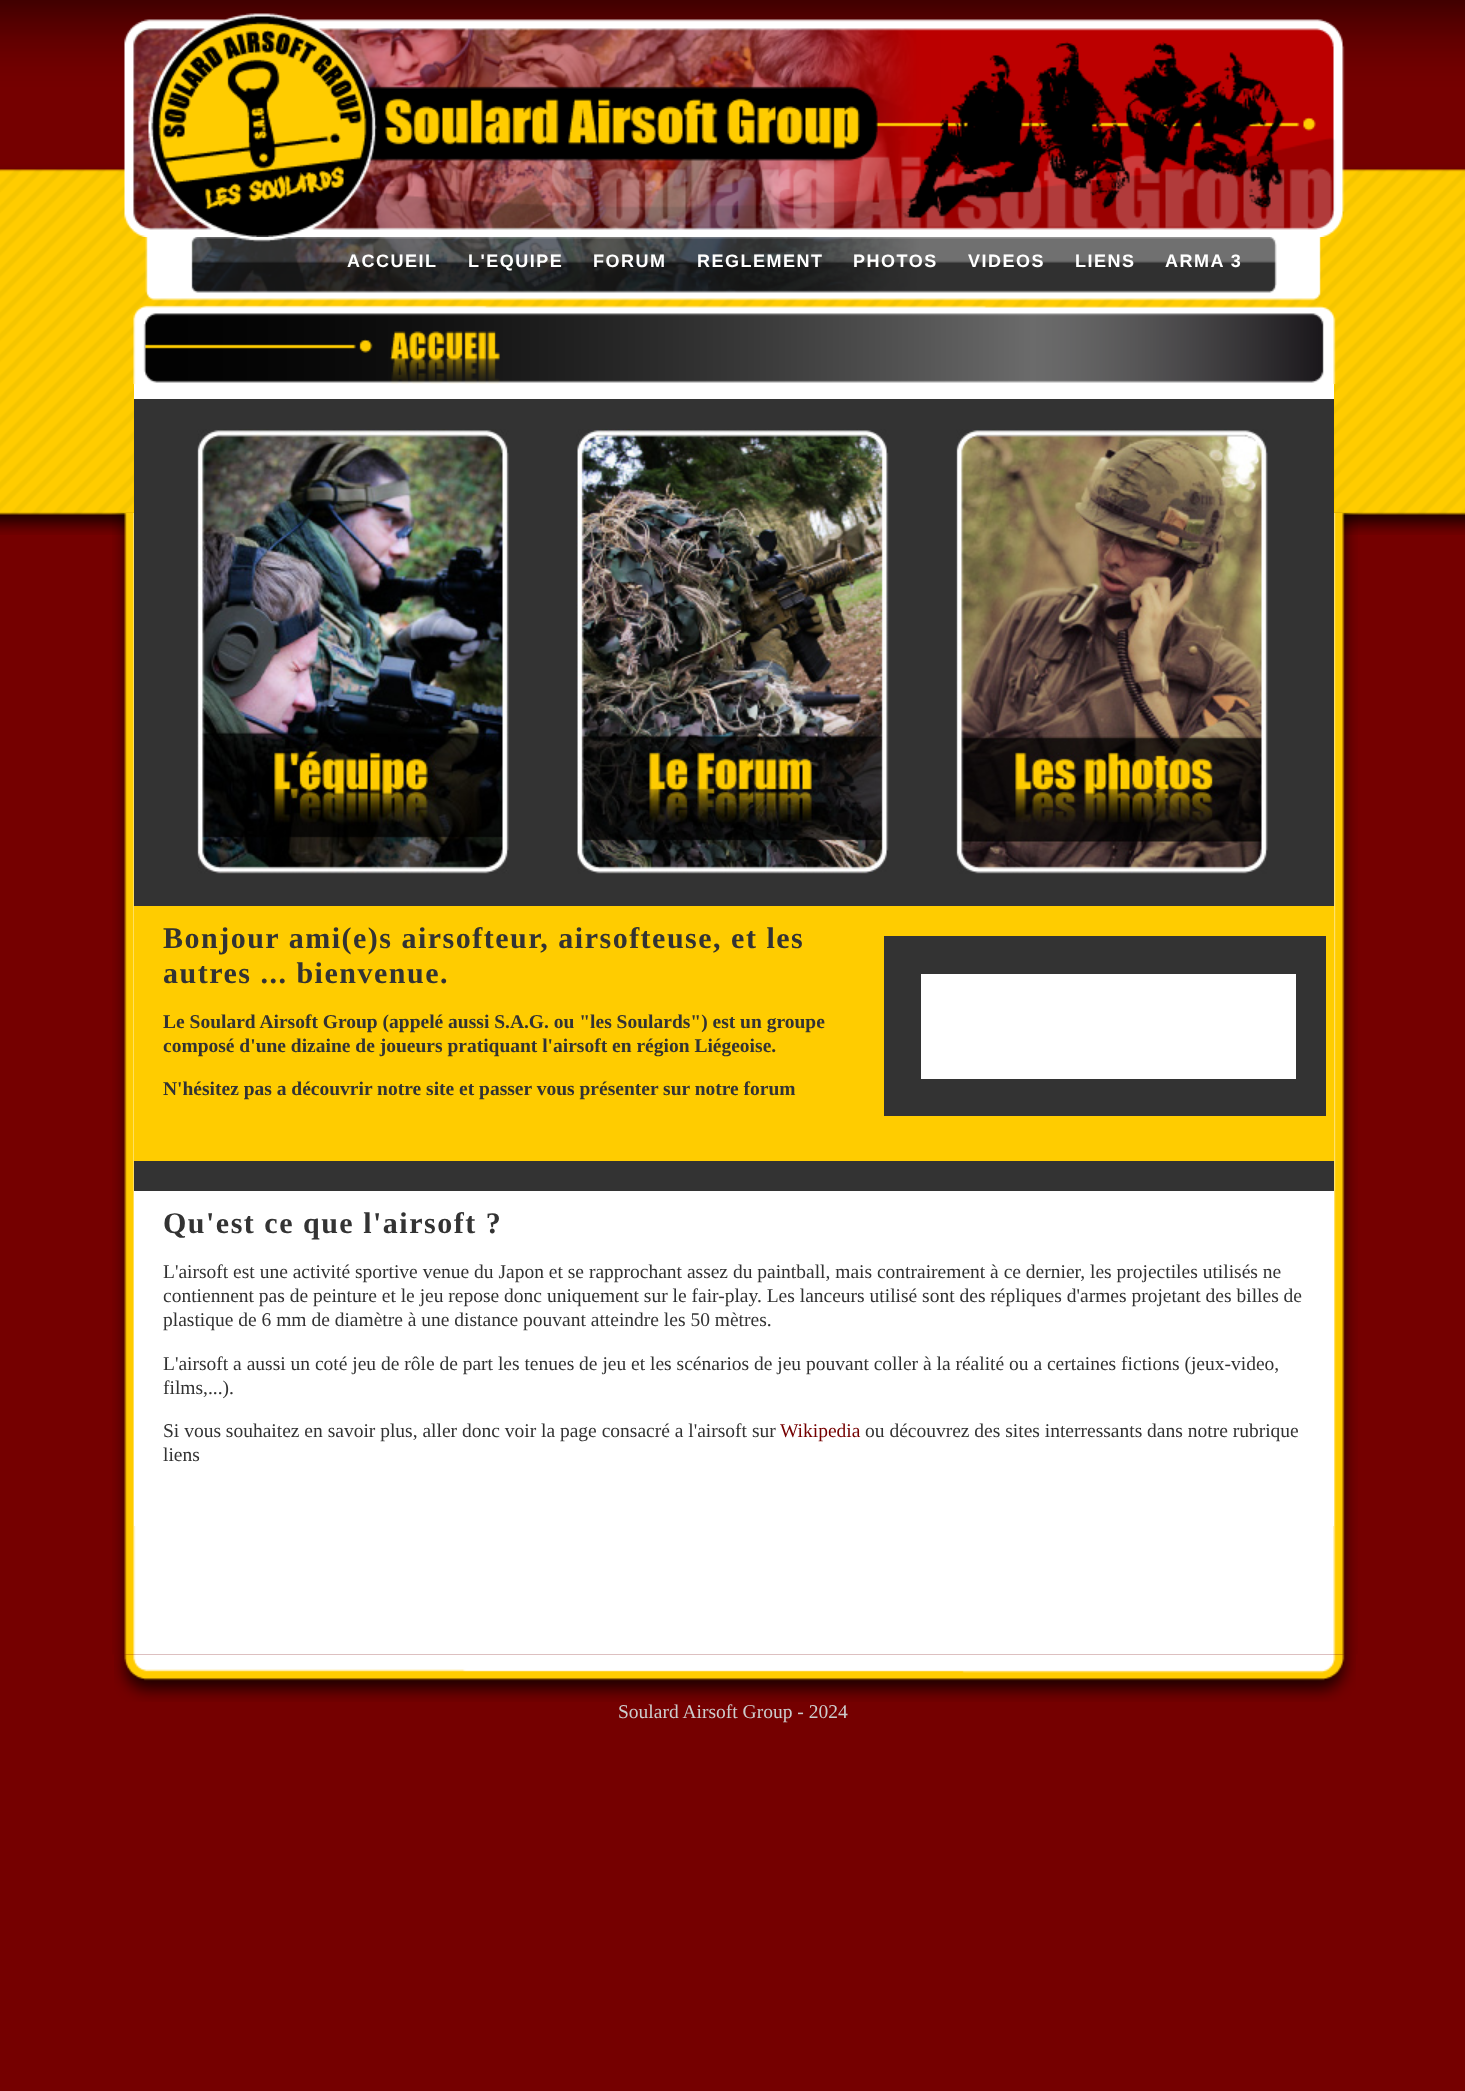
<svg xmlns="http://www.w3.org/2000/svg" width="1465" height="2091">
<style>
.a{font:bold 18px Liberation Sans;letter-spacing:1.5px;fill:#fff}
.b{font:bold 30px Liberation Serif;letter-spacing:1.5px;fill:#333}
.c{font:bold 19.5px Liberation Serif;fill:#333}
.d{font:19.5px Liberation Serif;fill:#333}
.e{font:19.5px Liberation Serif;fill:#750000}
.f{font:19.5px Liberation Serif;fill:#ccc}
</style>
<rect width="100%" height="100%" fill="#750000"/>
<image href="1.png" x="0" y="0" width="1465" height="535"/>
<image href="2.png" x="124" y="13" width="1221" height="224"/>
<image href="3.png" x="145" y="237" width="1177" height="64"/>
<image href="4.png" x="133" y="305" width="1203" height="79"/>
<image href="5.png" x="112" y="513" width="1246" height="1142"/>
<path fill="#fff" d="M134 384h1200v1142H134z"/>
<path fill="#333" d="M134 399h1200v507H134z"/>
<image href="6.png" x="197" y="429" width="312" height="445"/>
<image href="7.png" x="576" y="429" width="313" height="445"/>
<image href="8.png" x="956" y="429" width="312" height="445"/>
<path fill="#fc0" d="M134 906h1200v255H134z"/>
<path fill="#333" d="M134 1161h1200v30H134z"/>
<path fill="#333" d="M884 936h442v180H884z"/>
<path fill="#fff" d="M921 974h375v105H921z"/>
<image href="9.png" x="114" y="1654" width="1242" height="48"/>
<text class="a" x="347" y="267">ACCUEIL</text>
<text class="a" x="468" y="267">L'EQUIPE</text>
<text class="a" x="593" y="267">FORUM</text>
<text class="a" x="697" y="267">REGLEMENT</text>
<text class="a" x="853" y="267">PHOTOS</text>
<text class="a" x="968" y="267">VIDEOS</text>
<text class="a" x="1075" y="267">LIENS</text>
<text class="a" x="1165" y="267">ARMA 3</text>
<text class="b" x="163" y="948">Bonjour ami(e)s airsofteur, airsofteuse, et les</text>
<text class="b" x="163" y="983">autres ... bienvenue.</text>
<text class="c" x="163" y="1028">Le Soulard Airsoft Group (appelé aussi S.A.G. ou "les Soulards") est un groupe</text>
<text class="c" x="163" y="1052">composé d'une dizaine de joueurs pratiquant l'airsoft en région Liégeoise.</text>
<text class="c" x="163" y="1095">N'hésitez pas a découvrir notre site et passer vous présenter sur notre forum</text>
<text class="b" x="163" y="1233">Qu'est ce que l'airsoft ?</text>
<text class="d" x="163" y="1278">L'airsoft est une activité sportive venue du Japon et se rapprochant assez du paintball, mais contrairement à ce dernier, les projectiles utilisés ne</text>
<text class="d" x="163" y="1302">contiennent pas de peinture et le jeu repose donc uniquement sur le fair-play. Les lanceurs utilisé sont des répliques d'armes projetant des billes de</text>
<text class="d" x="163" y="1326">plastique de 6 mm de diamètre à une distance pouvant atteindre les 50 mètres.</text>
<text class="d" x="163" y="1370">L'airsoft a aussi un coté jeu de rôle de part les tenues de jeu et les scénarios de jeu pouvant coller à la réalité ou a certaines fictions (jeux-video,</text>
<text class="d" x="163" y="1394">films,...).</text>
<text class="d" x="163" y="1437">Si vous souhaitez en savoir plus, aller donc voir la page consacré a l'airsoft sur</text>
<text class="e" x="780" y="1437">Wikipedia</text>
<text class="d" x="865" y="1437">ou découvrez des sites interressants dans notre rubrique</text>
<text class="d" x="163" y="1461">liens</text>
<text class="f" x="618" y="1718">Soulard Airsoft Group - 2024</text>
</svg>
